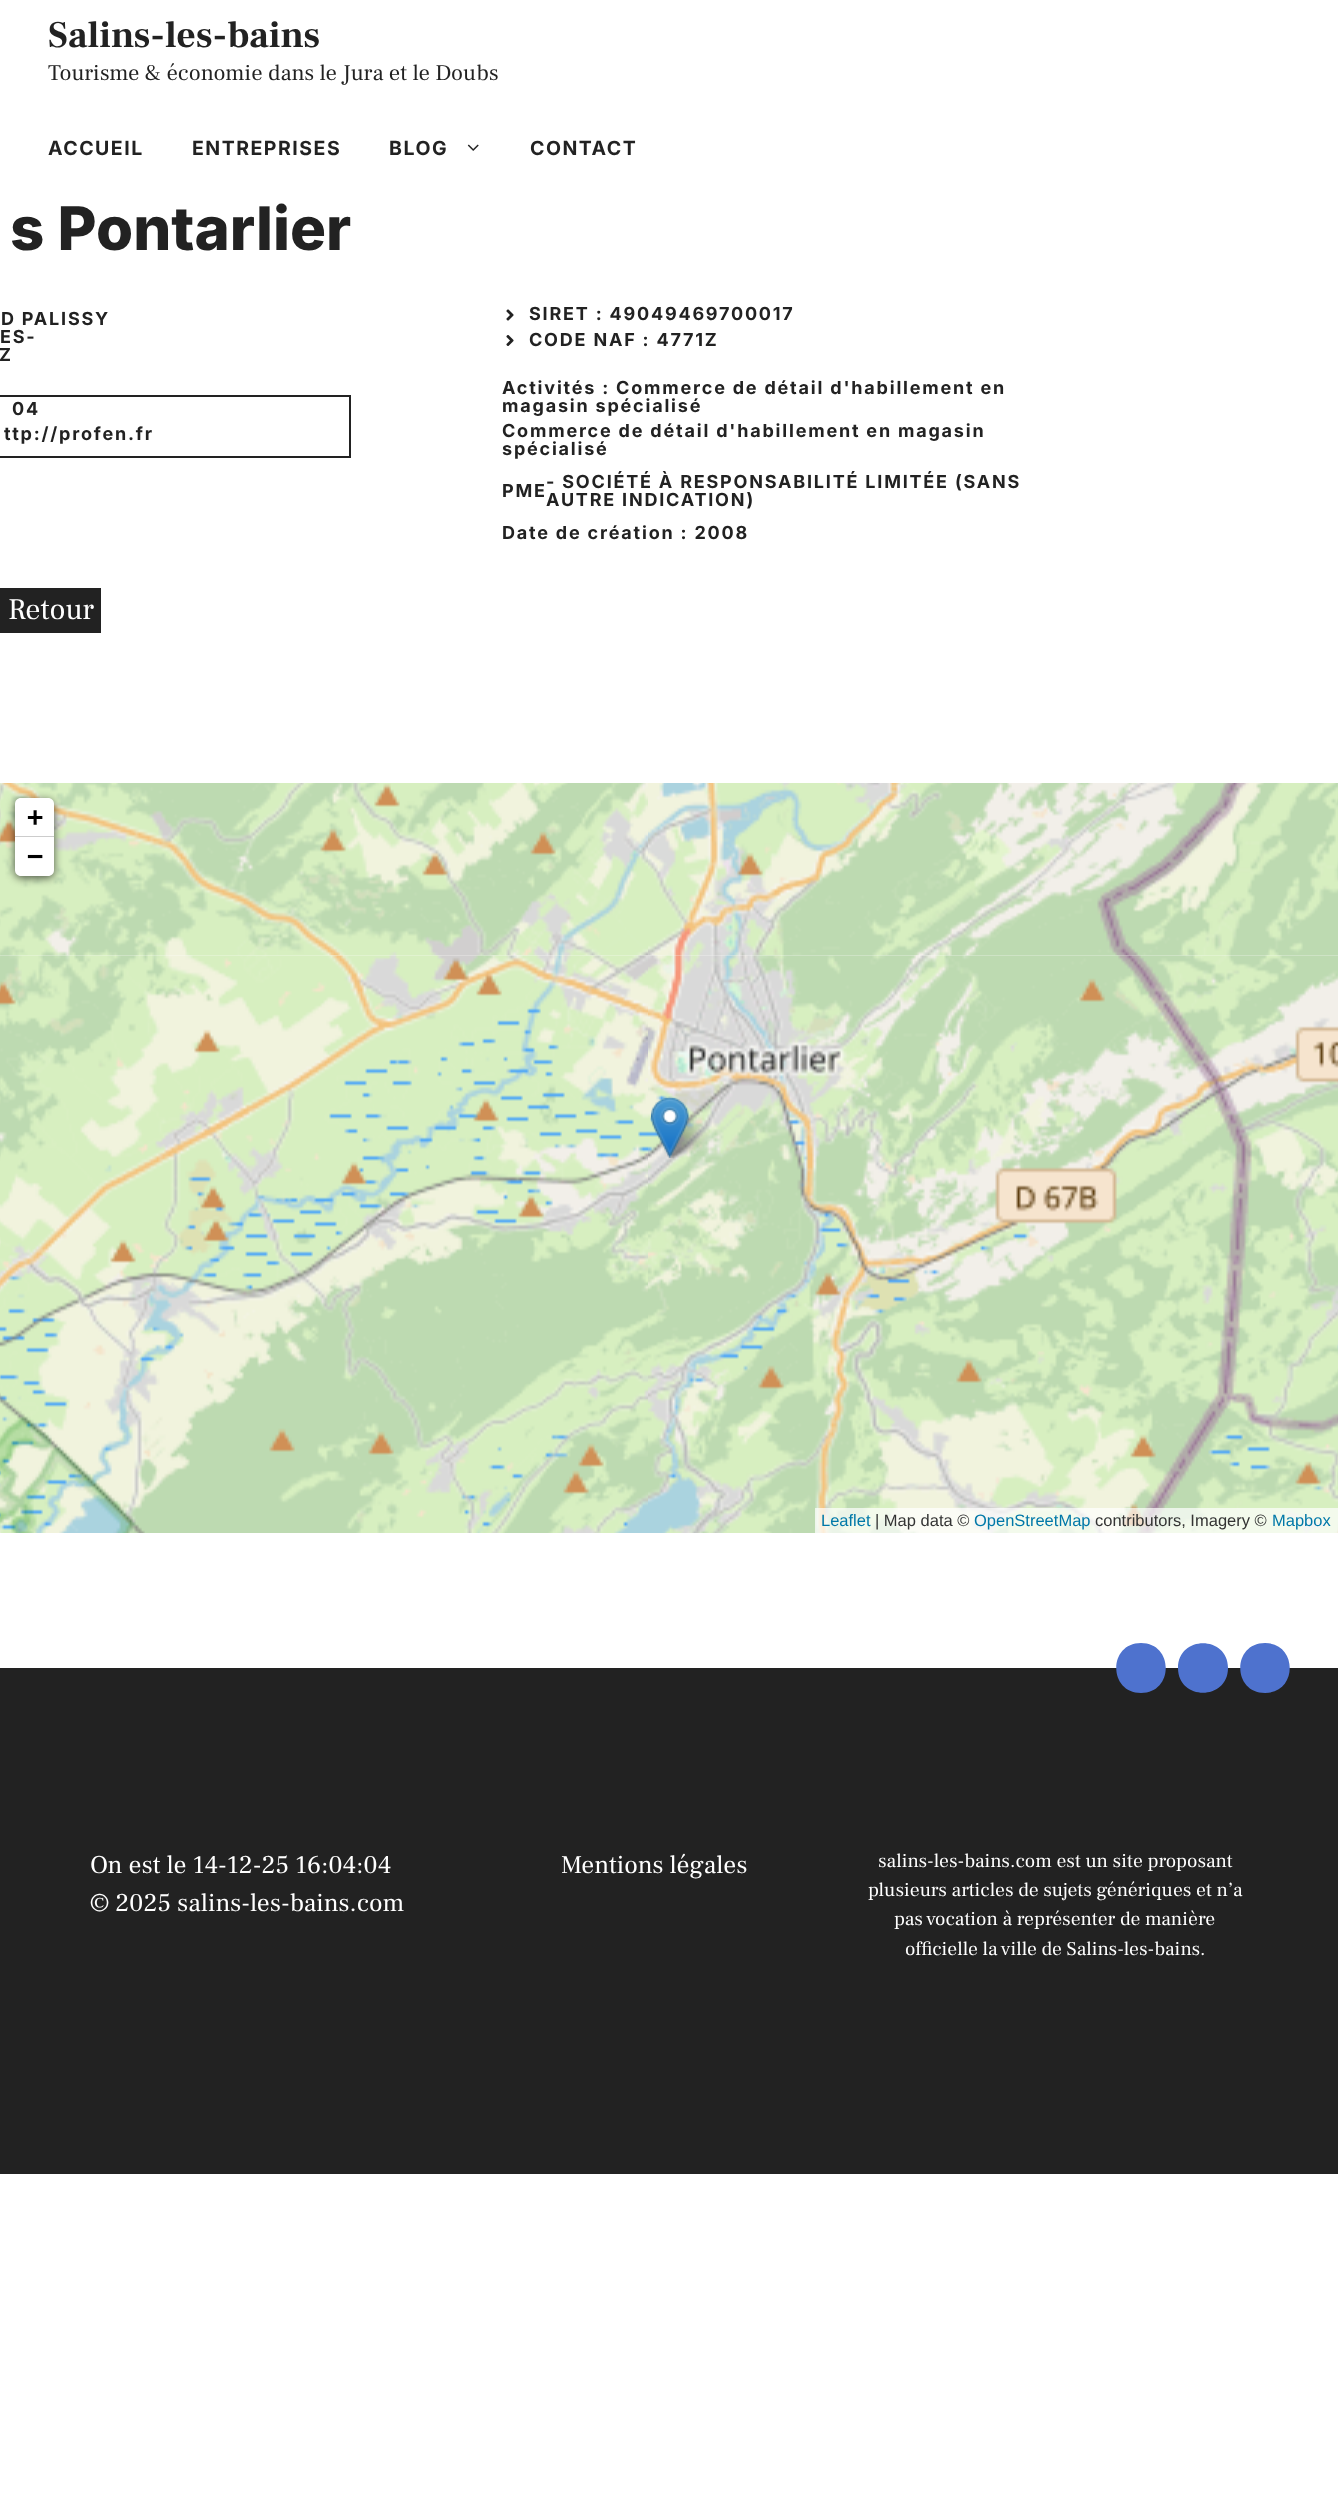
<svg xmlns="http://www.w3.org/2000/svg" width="1338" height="2501">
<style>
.a{font:bold 37.5px Frank Ruhl Libre;fill:#222}
.b{font:22.5px Frank Ruhl Libre;fill:#222}
.c{font:bold 19.5px Inter;letter-spacing:1.5px;fill:#222}
.d{font:800 60px Inter;fill:#222}
.e{font:bold 18px Inter;letter-spacing:1.8px;fill:#222}
.f{font:30px Frank Ruhl Libre;fill:#fff}
.g{font:bold 27px DejaVu Sans Mono;fill:#000}
.h{font:16.5px Liberation Sans;fill:#0078a8}
.i{font:16.5px Liberation Sans;fill:#333}
.j{font:25.5px Frank Ruhl Libre;fill:#fff}
.k{font:19.5px Frank Ruhl Libre;fill:#fff}
</style>
<rect width="100%" height="100%" fill="#fff"/>
<image href="1.png" x="467" y="144" width="12" height="7"/>
<path fill="none" stroke="#222" stroke-width="2" d="M-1 396h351v61H-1z"/>
<image href="2.png" x="506" y="309" width="8" height="12"/>
<image href="3.png" x="506" y="335" width="8" height="11"/>
<path fill="#222" d="M0 588h101v45H0z"/>
<image href="4.png" x="0" y="783" width="648" height="173"/>
<image href="5.png" x="648" y="783" width="690" height="173"/>
<image href="6.png" x="0" y="955" width="648" height="578"/>
<image href="7.png" x="648" y="955" width="690" height="578"/>
<image href="9.png" x="664" y="1115" width="46" height="43"/>
<image href="8.png" x="651" y="1096" width="38" height="62"/>
<rect fill="#000000a6" filter="blur(4px)" x="15" y="800" width="39" height="78" rx="6"/>
<path fill="#fff" d="M21 798h27c3.5 0 6 2.5 6 6v33h-39v-33c0-3.5 2.5-6 6-6z"/>
<path fill="#ccc" d="M15 836h39v1H15z"/>
<path fill="#fff" d="M15 837h39v33c0 3.5-2.5 6-6 6h-27c-3.5 0-6-2.5-6-6z"/>
<path fill="#ffffffb3" d="M815 1508h523v25H815z"/>
<path fill="#222" d="M0 1668h1338v506H0z"/>
<path fill="#4e72ce" d="M1228 1668c0 33-50 33-50 0c0-33 50-33 50 0zm37-25c-33 0-33 50 0 50c33 0 33-50 0-50zm-124 0c-33 0-33 50 0 50c33 0 33-50 0-50z"/>
<text class="a" x="48" y="47">Salins-les-bains</text>
<text class="b" x="48" y="80">Tourisme &amp; économie dans le Jura et le Doubs</text>
<text class="c" x="48" y="155">ACCUEIL</text>
<text class="c" x="192" y="155">ENTREPRISES</text>
<text class="c" x="389" y="155">BLOG</text>
<text class="c" x="530" y="155">CONTACT</text>
<text class="d" x="10" y="250">s Pontarlier</text>
<text class="e" x="1" y="325">D PALISSY</text>
<text class="e" x="0" y="343">ES-</text>
<text class="e" x="-1" y="361">Z</text>
<text class="e" x="12" y="415">04</text>
<text class="e" x="4" y="440">ttp://profen.fr</text>
<text class="e" x="529" y="320">SIRET : 49049469700017</text>
<text class="e" x="529" y="346">CODE NAF : 4771Z</text>
<text class="e" x="502" y="394">Activités : Commerce de détail d'habillement en</text>
<text class="e" x="502" y="412">magasin spécialisé</text>
<text class="e" x="502" y="437">Commerce de détail d'habillement en magasin</text>
<text class="e" x="502" y="455">spécialisé</text>
<text class="e" x="502" y="497">PME</text>
<text class="e" x="546" y="488">- SOCIÉTÉ À RESPONSABILITÉ LIMITÉE (SANS</text>
<text class="e" x="546" y="506">AUTRE INDICATION)</text>
<text class="e" x="502" y="539">Date de création : 2008</text>
<text class="f" x="8" y="619">Retour</text>
<text class="g" x="27" y="826">+</text>
<text class="g" x="27" y="865">−</text>
<text class="h" x="821" y="1526">Leaflet</text>
<text class="i" x="875" y="1526">| Map data ©</text>
<text class="h" x="974" y="1526">OpenStreetMap</text>
<text class="i" x="1095" y="1526">contributors, Imagery ©</text>
<text class="h" x="1272" y="1526">Mapbox</text>
<text class="j" x="90" y="1873">On est le 14-12-25 16:04:04</text>
<text class="j" x="90" y="1911">© 2025 salins-les-bains.com</text>
<text class="j" x="561" y="1873">Mentions légales</text>
<text class="k" x="878" y="1867">salins-les-bains.com est un site proposant</text>
<text class="k" x="868" y="1896">plusieurs articles de sujets génériques et n’a</text>
<text class="k" x="894" y="1925">pas vocation à représenter de manière</text>
<text class="k" x="905" y="1955">officielle la ville de Salins-les-bains.</text>
</svg>
